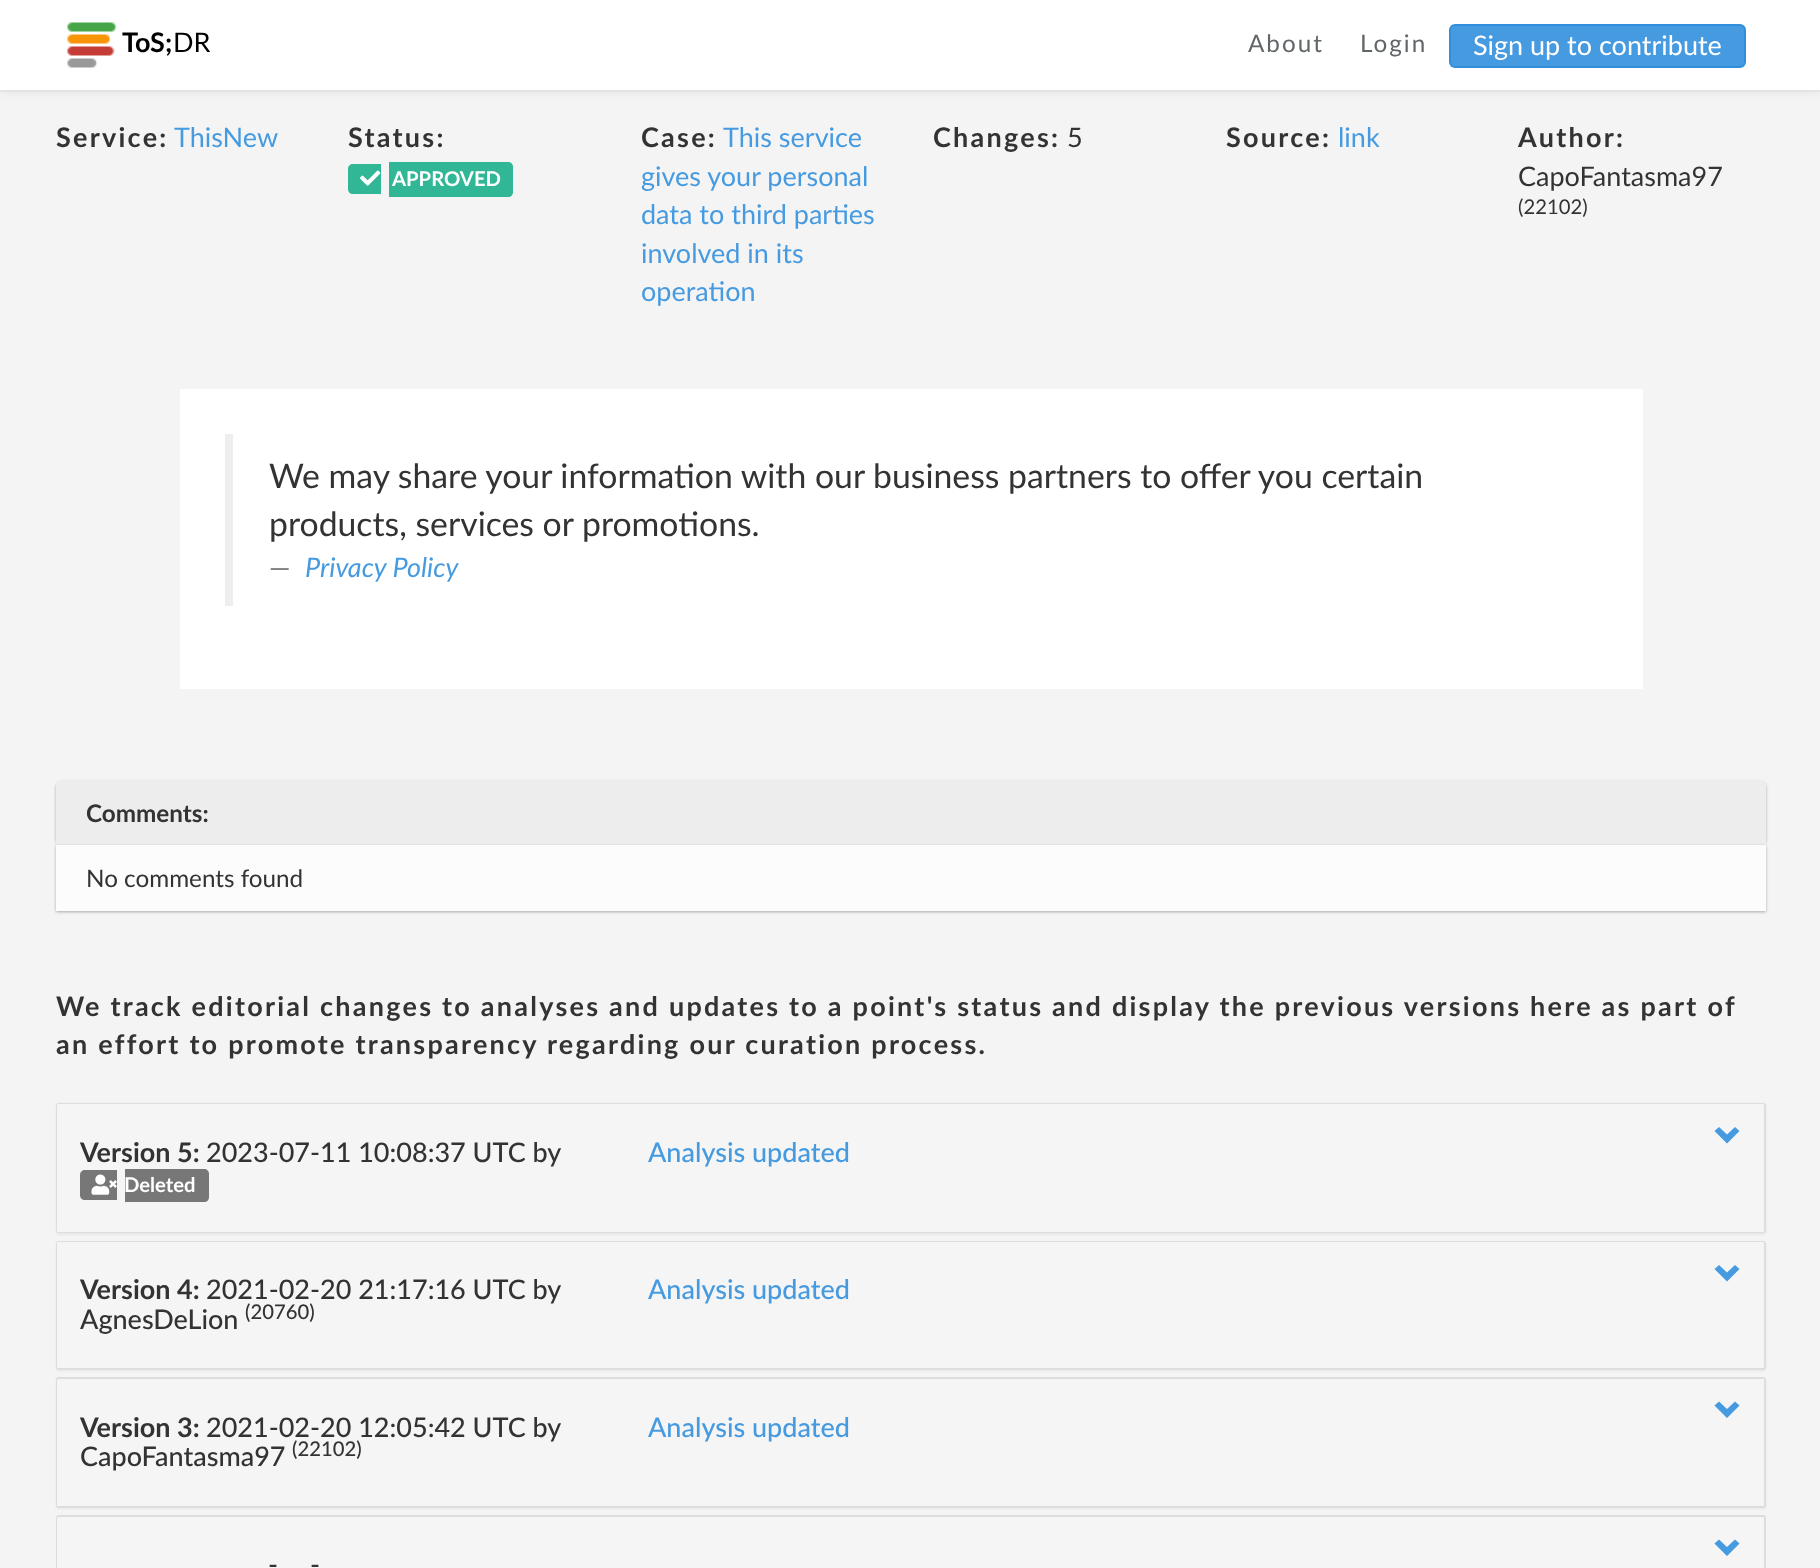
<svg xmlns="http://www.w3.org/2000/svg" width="1820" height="1568">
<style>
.a{font:bold 27px Lato;fill:#000}
.b{font:27px Lato;fill:#000}
.c{font:24.25px Lato;letter-spacing:2px;fill:#616668}
.d{font:27px Lato;fill:#fff}
.e{font:bold 27px Lato;letter-spacing:2.25px;fill:#333}
.f{font:27px Lato;fill:#469ae0}
.g{font:bold 20.25px Lato;fill:#fff}
.h{font:27px Lato;fill:#333}
.i{font:20.25px Lato;fill:#333}
.j{font:33.75px Lato;fill:#333}
.k{font:27px Lato;fill:#777}
.l{font:italic 27px Lato;fill:#469ae0}
.m{font:bold 24.25px Lato;fill:#333}
.n{font:24.25px Lato;fill:#333}
.o{font:bold 27px Lato;fill:#333}
.p{font:500 27px Lato;fill:#333}
.q{font:500 27px Lato;fill:#469ae0}
.r{font:500 20.25px Lato;fill:#333}
</style>
<rect width="100%" height="100%" fill="#f4f4f4"/>
<path fill="#ededed" d="M0 90h1820v2H0z"/>
<path fill="#00000012" filter="blur(4px)" d="M0 2h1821v90H0z"/>
<path fill="#fff" d="M0 0h1820v90H0z"/>
<image href="1.png" x="67" y="22" width="49" height="46"/>
<rect fill="#469ae0" stroke="#308edc" stroke-width="2" x="1450" y="25" width="295" height="42" rx="5"/>
<path fill="#32b796" d="M353 164h28v30h-28c-3 0-5-2-5-5v-20c0-3 2-5 5-5z"/>
<path fill="#32b796" d="M389 162h119c3 0 5 2 5 5v25c0 3-2 5-5 5h-119z"/>
<image href="2.png" x="360" y="170" width="21" height="16"/>
<path fill="#fff" d="M180 389h1463v300H180z"/>
<path fill="#eee" d="M225 434h8v172H225z"/>
<rect fill="#0000004d" filter="blur(1.5px)" x="56" y="782" width="1710" height="64" rx="6"/>
<path fill="#ededed" d="M62 780h1698c3.5 0 6 2.5 6 6v59h-1710v-59c0-3.5 2.5-6 6-6z"/>
<path fill="#0000004d" filter="blur(1.5px)" d="M56 846h1710v66H56z"/>
<path fill="#fcfcfc" d="M56 845h1710v66H56z"/>
<rect fill="#0000000d" filter="blur(1px)" x="56" y="1104" width="1710" height="131" rx="3"/>
<rect fill="none" stroke="#ddd" stroke-width="2" x="57" y="1104" width="1708" height="128" rx="2"/>
<path fill="#f5f5f5" d="M58.5 1104h1704c1 0 1.5 .5 1.5 1.5v126.5h-1707v-126.5c0-1 .5-1.5 1.5-1.5z"/>
<path fill="#469ae0" d="M1739.5 1131l-12.5 12.5l-12.5-12.5l4.5-4l8 7.5l8-7.5z"/>
<path fill="#777" d="M85 1170h32v30h-32c-3 0-5-2-5-5v-20c0-3 2-5 5-5z"/>
<path fill="#777" d="M125 1169h79c3 0 5 2 5 5v23c0 3-2 5-5 5h-79z"/>
<image href="3.png" x="91" y="1174" width="26" height="21"/>
<rect fill="#0000000d" filter="blur(1px)" x="56" y="1242" width="1710" height="129" rx="3"/>
<rect fill="none" stroke="#ddd" stroke-width="2" x="57" y="1242" width="1708" height="127" rx="2"/>
<path fill="#f5f5f5" d="M58.5 1242h1704c1 0 1.5 .5 1.5 1.5v124.5h-1707v-124.5c0-1 .5-1.5 1.5-1.5z"/>
<path fill="#469ae0" d="M1739.5 1269l-12.5 12.5l-12.5-12.5l4.5-4l8 7.5l8-7.5z"/>
<rect fill="#0000000d" filter="blur(1px)" x="56" y="1379" width="1710" height="130" rx="3"/>
<rect fill="#fff" stroke="#ddd" stroke-width="2" x="57" y="1378" width="1708" height="129" rx="2"/>
<path fill="#f5f5f5" d="M58.5 1379h1704c1 0 1.5 .5 1.5 1.5v125.5h-1707v-125.5c0-1 .5-1.5 1.5-1.5z"/>
<path fill="#469ae0" d="M1739.5 1405.5l-12.5 12.5l-12.5-12.5l4.5-4l8 7.5l8-7.5z"/>
<rect fill="#fff" stroke="#ddd" stroke-width="2" x="57" y="1516" width="1708" height="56" rx="2"/>
<path fill="#f5f5f5" d="M58.5 1517h1704c1 0 1.5 .5 1.5 1.5v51.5h-1707v-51.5c0-1 .5-1.5 1.5-1.5z"/>
<path fill="#469ae0" d="M1739.5 1543.5l-12.5 12.5l-12.5-12.5l4.5-4l8 7.5l8-7.5z"/>
<text class="a" x="122" y="52">ToS;</text>
<text class="b" x="173" y="52">DR</text>
<text class="c" x="1248" y="52">About</text>
<text class="c" x="1360" y="52">Login</text>
<text class="d" x="1473" y="55">Sign up to contribute</text>
<text class="e" x="56" y="147">Service:</text>
<text class="f" x="174" y="147">ThisNew</text>
<text class="e" x="348" y="147">Status:</text>
<text class="g" x="392" y="186">APPROVED</text>
<text class="e" x="641" y="147">Case:</text>
<text class="f" x="723" y="147">This service</text>
<text class="f" x="641" y="186">gives your personal</text>
<text class="f" x="641" y="224">data to third parties</text>
<text class="f" x="641" y="263">involved in its</text>
<text class="f" x="641" y="301">operation</text>
<text class="e" x="933" y="147">Changes:</text>
<text class="h" x="1067" y="147">5</text>
<text class="e" x="1226" y="147">Source:</text>
<text class="f" x="1338" y="147">link</text>
<text class="e" x="1518" y="147">Author:</text>
<text class="h" x="1518" y="186">CapoFantasma97</text>
<text class="i" x="1518" y="214">(22102)</text>
<text class="j" x="269" y="488">We may share your information with our business partners to offer you certain</text>
<text class="j" x="269" y="536">products, services or promotions.</text>
<text class="k" x="269" y="577">—</text>
<text class="l" x="305" y="577">Privacy Policy</text>
<text class="m" x="86" y="822">Comments:</text>
<text class="n" x="86" y="887">No comments found</text>
<text class="e" x="56" y="1016">We track editorial changes to analyses and updates to a point's status and display the previous versions here as part of</text>
<text class="e" x="56" y="1054">an effort to promote transparency regarding our curation process.</text>
<text class="o" x="80" y="1162">Version 5:</text>
<text class="p" x="206" y="1162">2023-07-11 10:08:37 UTC by</text>
<text class="g" x="124" y="1192">Deleted</text>
<text class="q" x="648" y="1162">Analysis updated</text>
<text class="o" x="80" y="1299">Version 4:</text>
<text class="p" x="206" y="1299">2021-02-20 21:17:16 UTC by</text>
<text class="p" x="80" y="1329">AgnesDeLion</text>
<text class="r" x="245" y="1319">(20760)</text>
<text class="q" x="648" y="1299">Analysis updated</text>
<text class="o" x="80" y="1437">Version 3:</text>
<text class="p" x="206" y="1437">2021-02-20 12:05:42 UTC by</text>
<text class="p" x="80" y="1466">CapoFantasma97</text>
<text class="r" x="292" y="1456">(22102)</text>
<text class="q" x="648" y="1437">Analysis updated</text>
<text class="p" x="268" y="1574">-</text>
<text class="p" x="310" y="1574">-</text>
</svg>
